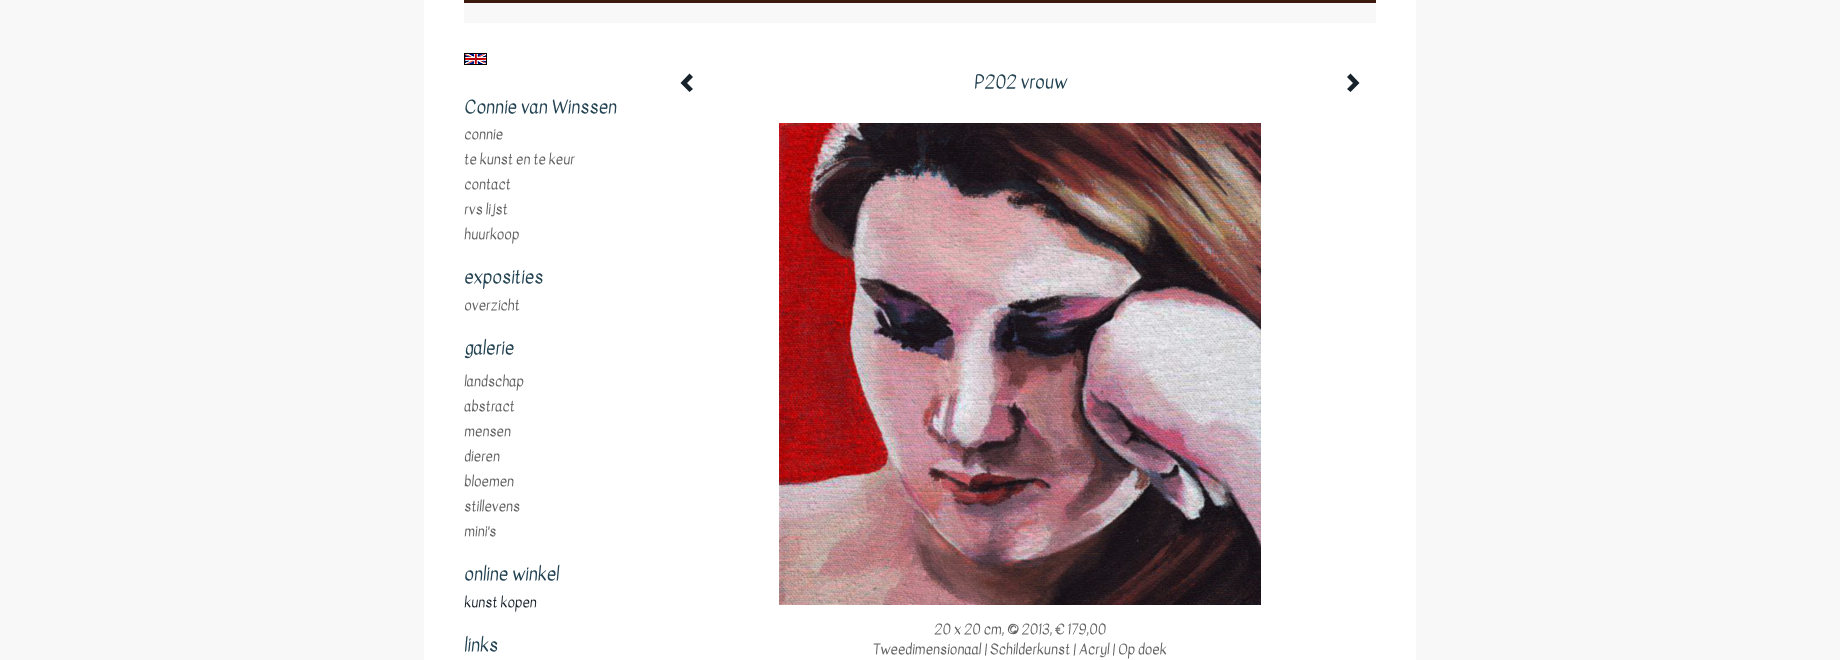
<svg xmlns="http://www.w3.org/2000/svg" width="1840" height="660">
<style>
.a{font:18px Kavivanar;fill:#234252}
.b{font:14px Kavivanar;fill:#646363}
.c{font:14px Kavivanar;fill:#18222b}
</style>
<rect width="100%" height="100%" fill="#f8f8f8"/>
<path fill="#fff" d="M424 0h992v660H424z"/>
<path fill="#3c1a0e" d="M464 0h912v3H464z"/>
<path fill="#f8f8f8" d="M464 3h912v20H464z"/>
<image href="1.png" x="464" y="53" width="23" height="12"/>
<path fill="#18222b" d="M693 77l-6 6l6 6l-3.5 3l-9-9l9-9.5z"/>
<path fill="#18222b" d="M1359.5 83l-9 9l-3.5-3l6-6l-6-6l3.5-3.5z"/>
<image href="2.png" x="779" y="123" width="482" height="482"/>
<text class="a" x="464" y="113">Connie van Winssen</text>
<text class="b" x="464" y="139">connie</text>
<text class="b" x="464" y="164">te kunst en te keur</text>
<text class="b" x="464" y="189">contact</text>
<text class="b" x="464" y="214">rvs lijst</text>
<text class="b" x="464" y="239">huurkoop</text>
<text class="a" x="464" y="283">exposities</text>
<text class="b" x="464" y="310">overzicht</text>
<text class="a" x="464" y="354">galerie</text>
<text class="b" x="464" y="386">landschap</text>
<text class="b" x="464" y="411">abstract</text>
<text class="b" x="464" y="436">mensen</text>
<text class="b" x="464" y="461">dieren</text>
<text class="b" x="464" y="486">bloemen</text>
<text class="b" x="464" y="511">stillevens</text>
<text class="b" x="464" y="536">mini's</text>
<text class="a" x="464" y="580">online winkel</text>
<text class="c" x="464" y="607">kunst kopen</text>
<text class="a" x="464" y="651">links</text>
<text class="a" x="974" y="88">P202 vrouw</text>
<text class="b" x="934" y="634">20 x 20 cm, © 2013, € 179,00</text>
<text class="b" x="873" y="654">Tweedimensionaal | Schilderkunst | Acryl | Op doek</text>
</svg>
